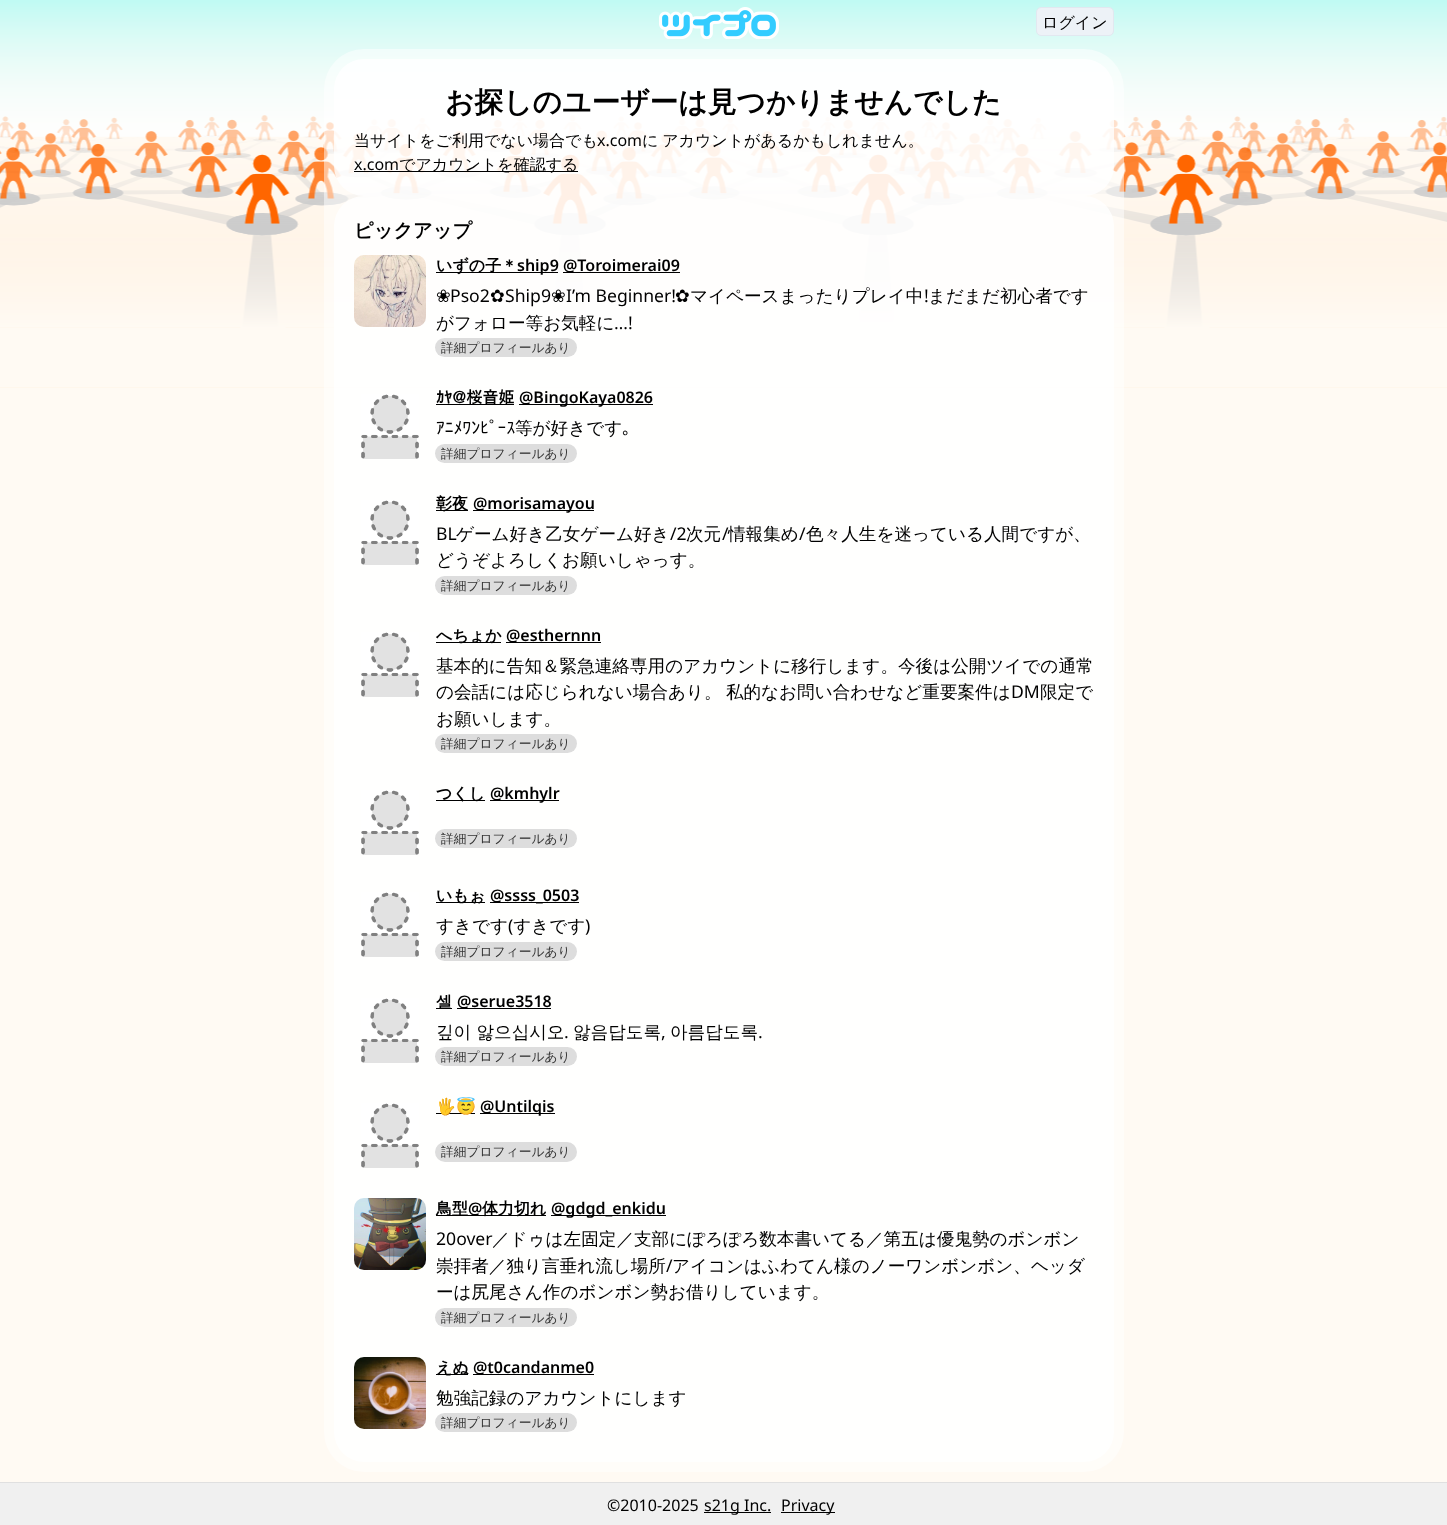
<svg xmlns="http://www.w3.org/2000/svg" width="1447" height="1525">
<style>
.a{font:500 16px WenQuanYi Zen Hei;fill:#000}
.b{font:bold 28.75px WenQuanYi Zen Hei;fill:#000}
.c{font:16px Noto Sans;fill:#000}
.d{font:bold 19.25px WenQuanYi Zen Hei;fill:#000}
.e{font:bold 16px WenQuanYi Zen Hei;fill:#000}
.f{font:600 16px Noto Sans;fill:#000}
.g{font:17.6px DejaVu Sans;fill:#000}
.h{font:17.6px Noto Sans;fill:#000}
.i{font:500 17.6px WenQuanYi Zen Hei;fill:#000}
.j{font:500 12.75px WenQuanYi Zen Hei;fill:#333}
.k{font:bold 16px IPAPGothic;fill:#000}
.l{font:17.6px IPAPGothic;fill:#000}
.m{font:16px Noto Color Emoji;fill:#000}
</style>
<rect width="100%" height="100%" fill="#f0f0f0"/>
<path fill="#fffaf3" d="M0 388h1447v1094H0z"/>
<image href="1.png" x="0" y="0" width="1447" height="388"/>
<image href="2.png" x="659" y="7" width="120" height="32"/>
<rect fill="#edf2f7" stroke="#e2e8f0" x="1036.5" y="7.5" width="77" height="28" rx="4.5"/>
<rect fill="#ffffff80" x="324" y="49" width="800" height="1423" rx="40"/>
<rect fill="#ffffffcc" x="334" y="59" width="780" height="137" rx="30"/>
<path fill="#000" d="M354 171h224v1H354z"/>
<rect fill="#ffffffcc" x="334" y="196" width="780" height="1266" rx="30"/>
<image href="3.png" x="354" y="255" width="72" height="72"/>
<path fill="#000" d="M436 272h122v1H436z"/>
<path fill="#000" d="M563 272h117v1H563z"/>
<rect fill="#ddd" x="435" y="338" width="142" height="19" rx="9.5"/>
<image href="4.png" x="361" y="394" width="58" height="65"/>
<path fill="#000" d="M436 404h78v1H436z"/>
<path fill="#000" d="M519 404h134v1H519z"/>
<rect fill="#ddd" x="435" y="444" width="142" height="19" rx="9.5"/>
<image href="5.png" x="361" y="500" width="58" height="65"/>
<path fill="#000" d="M436 510h32v1H436z"/>
<path fill="#000" d="M473 510h121v1H473z"/>
<rect fill="#ddd" x="435" y="576" width="142" height="19" rx="9.5"/>
<image href="5.png" x="361" y="632" width="58" height="65"/>
<path fill="#000" d="M436 642h65v1H436z"/>
<path fill="#000" d="M506 642h95v1H506z"/>
<rect fill="#ddd" x="435" y="734" width="142" height="19" rx="9.5"/>
<image href="6.png" x="361" y="790" width="58" height="65"/>
<path fill="#000" d="M436 800h49v1H436z"/>
<path fill="#000" d="M490 800h69v1H490z"/>
<rect fill="#ddd" x="435" y="829" width="142" height="19" rx="9.5"/>
<image href="5.png" x="361" y="892" width="58" height="65"/>
<path fill="#000" d="M436 902h49v1H436z"/>
<path fill="#000" d="M490 902h89v1H490z"/>
<rect fill="#ddd" x="435" y="942" width="142" height="19" rx="9.5"/>
<image href="5.png" x="361" y="998" width="58" height="65"/>
<path fill="#000" d="M436 1008h16v1H436z"/>
<path fill="#000" d="M457 1008h94v1H457z"/>
<rect fill="#ddd" x="435" y="1047" width="142" height="19" rx="9.5"/>
<image href="5.png" x="361" y="1103" width="58" height="65"/>
<path fill="#000" d="M436 1113h39v1H436z"/>
<path fill="#000" d="M480 1113h75v1H480z"/>
<rect fill="#ddd" x="435" y="1142" width="142" height="20" rx="10"/>
<image href="7.png" x="354" y="1198" width="72" height="72"/>
<path fill="#000" d="M436 1215h110v1H436z"/>
<path fill="#000" d="M551 1215h115v1H551z"/>
<rect fill="#ddd" x="435" y="1308" width="142" height="19" rx="9.5"/>
<image href="8.png" x="354" y="1357" width="72" height="72"/>
<path fill="#000" d="M436 1374h32v1H436z"/>
<path fill="#000" d="M473 1374h121v1H473z"/>
<rect fill="#ddd" x="435" y="1413" width="142" height="19" rx="9.5"/>
<path fill="#e0e0e0" d="M0 1482h1447v1H0z"/>
<path fill="#000" d="M704 1512h67v1H704z"/>
<path fill="#000" d="M781 1512h54v1H781z"/>
<text class="a" x="1042" y="28">ログイン</text>
<text class="b" x="445" y="112">お探しのユーザーは見つかりませんでした</text>
<text class="a" x="354" y="146">当サイトをご利用でない場合でも</text>
<text class="c" x="597" y="146">x.com</text>
<text class="a" x="642" y="146" word-spacing="-1">に アカウントがあるかもしれません。</text>
<text class="c" x="354" y="170">x.com</text>
<text class="a" x="399" y="170">でアカウントを確認する</text>
<text class="d" x="354" y="237">ピックアップ</text>
<text class="e" x="436" y="271">いずの子＊</text>
<text class="f" x="517" y="271">ship9</text>
<text class="f" x="563" y="271">@Toroimerai09</text>
<text class="g" x="436" y="302">❀</text>
<text class="h" x="450" y="302">Pso2</text>
<text class="g" x="490" y="302">✿</text>
<text class="h" x="505" y="302">Ship9</text>
<text class="g" x="551" y="302">❀</text>
<text class="h" x="566" y="302">I’m Beginner!</text>
<text class="g" x="675" y="302">✿</text>
<text class="i" x="690" y="302">マイペースまったりプレイ中</text>
<text class="h" x="924" y="302">!</text>
<text class="i" x="928" y="302">まだまだ初心者です</text>
<text class="i" x="436" y="329">がフォロー等お気軽に</text>
<text class="h" x="614" y="329">…!</text>
<text class="j" x="441" y="352">詳細プロフィールあり</text>
<text class="k" x="436" y="403">ｶﾔ@桜音姫</text>
<text class="f" x="519" y="403">@BingoKaya0826</text>
<text class="l" x="436" y="434">ｱﾆﾒﾜﾝﾋﾟｰｽ</text>
<text class="i" x="515" y="434">等が好きです</text>
<text class="l" x="622" y="434">｡</text>
<text class="j" x="441" y="458">詳細プロフィールあり</text>
<text class="e" x="436" y="509">彰夜</text>
<text class="f" x="473" y="509">@morisamayou</text>
<text class="h" x="436" y="540">BL</text>
<text class="i" x="456" y="540">ゲーム好き乙女ゲーム好き</text>
<text class="h" x="670" y="540">/2</text>
<text class="i" x="686" y="540">次元</text>
<text class="h" x="722" y="540">/</text>
<text class="i" x="728" y="540">情報集め</text>
<text class="h" x="799" y="540">/</text>
<text class="i" x="806" y="540">色々人生を迷っている人間ですが、</text>
<text class="i" x="436" y="566">どうぞよろしくお願いしゃっす。</text>
<text class="j" x="441" y="590">詳細プロフィールあり</text>
<text class="e" x="436" y="641">へちょか</text>
<text class="f" x="506" y="641">@esthernnn</text>
<text class="i" x="436" y="672">基本的に告知＆緊急連絡専用のアカウントに移行します。今後は公開ツイでの通常</text>
<text class="i" x="436" y="698" word-spacing="-1">の会話には応じられない場合あり。 私的なお問い合わせなど重要案件は</text>
<text class="h" x="1011" y="698">DM</text>
<text class="i" x="1040" y="698">限定で</text>
<text class="i" x="436" y="725">お願いします。</text>
<text class="j" x="441" y="748">詳細プロフィールあり</text>
<text class="e" x="436" y="799">つくし</text>
<text class="f" x="490" y="799">@kmhylr</text>
<text class="j" x="441" y="843">詳細プロフィールあり</text>
<text class="e" x="436" y="901">いもぉ</text>
<text class="f" x="490" y="901">@ssss_0503</text>
<text class="i" x="436" y="932">すきです すきです</text>
<text class="h" x="508" y="932">(</text>
<text class="h" x="585" y="932">)</text>
<text class="j" x="441" y="956">詳細プロフィールあり</text>
<text class="e" x="436" y="1007">셀</text>
<text class="f" x="457" y="1007">@serue3518</text>
<text class="i" x="436" y="1038">깊이 앓으십시오</text>
<text class="h" x="564" y="1038">.</text>
<text class="i" x="573" y="1038">앓음답도록</text>
<text class="h" x="661" y="1038">,</text>
<text class="i" x="670" y="1038">아름답도록</text>
<text class="h" x="758" y="1038">.</text>
<text class="j" x="441" y="1061">詳細プロフィールあり</text>
<text class="m" x="436" y="1112">🖐😇</text>
<text class="f" x="480" y="1112">@Untilqis</text>
<text class="j" x="441" y="1156">詳細プロフィールあり</text>
<text class="e" x="436" y="1214">鳥型</text>
<text class="f" x="468" y="1214">@</text>
<text class="e" x="482" y="1214">体力切れ</text>
<text class="f" x="551" y="1214">@gdgd_enkidu</text>
<text class="h" x="436" y="1245">20over</text>
<text class="i" x="492" y="1245">／ドゥは左固定／支部にぽろぽろ数本書いてる／第五は優鬼勢のボンボン</text>
<text class="i" x="436" y="1272">崇拝者／独り言垂れ流し場所</text>
<text class="h" x="666" y="1272">/</text>
<text class="i" x="672" y="1272">アイコンはふわてん様のノーワンボンボン、ヘッダ</text>
<text class="i" x="436" y="1298">ーは尻尾さん作のボンボン勢お借りしています。</text>
<text class="j" x="441" y="1322">詳細プロフィールあり</text>
<text class="e" x="436" y="1373">えぬ</text>
<text class="f" x="473" y="1373">@t0candanme0</text>
<text class="i" x="436" y="1404">勉強記録のアカウントにします</text>
<text class="j" x="441" y="1427">詳細プロフィールあり</text>
<text class="c" x="607" y="1511">©2010-2025</text>
<text class="c" x="704" y="1511">s21g Inc.</text>
<text class="c" x="781" y="1511">Privacy</text>
</svg>
